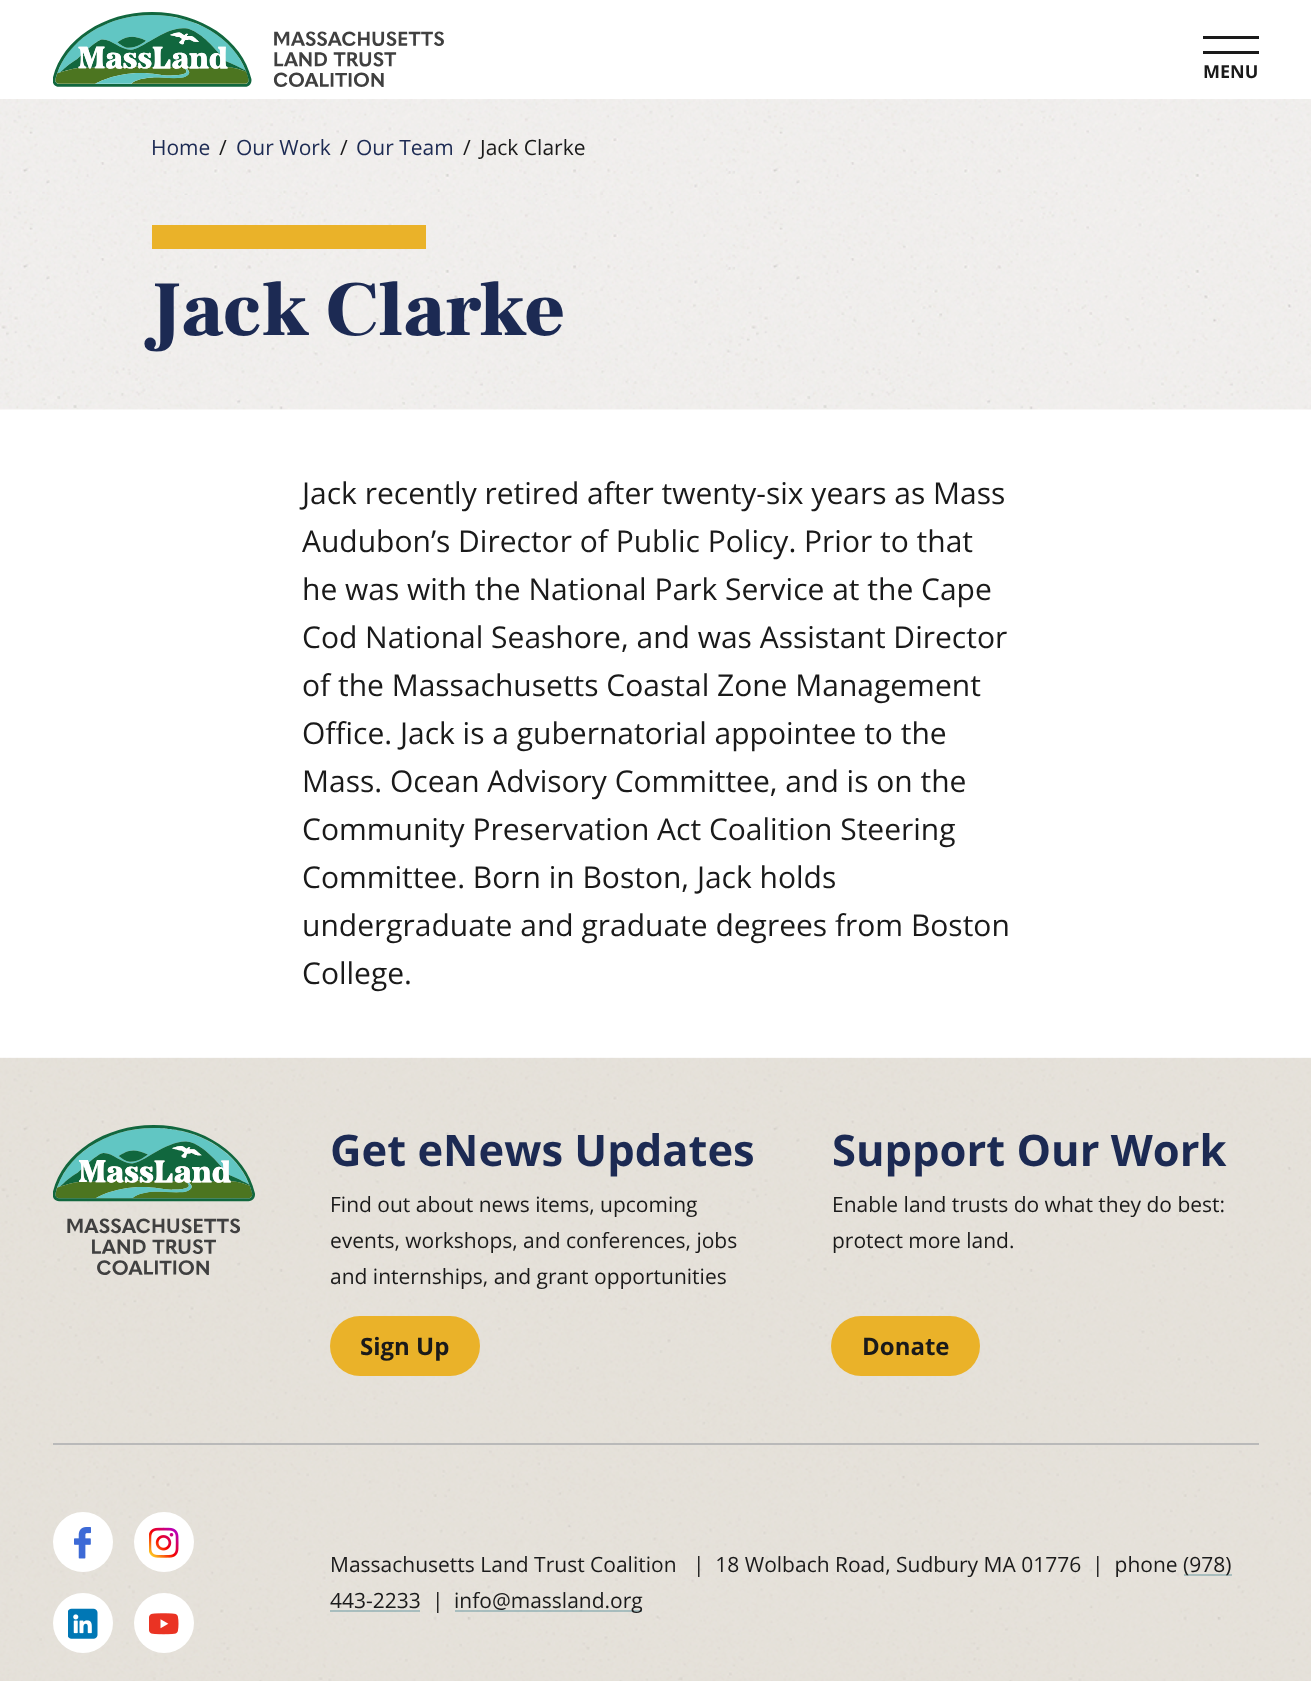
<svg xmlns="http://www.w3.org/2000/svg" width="1311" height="1681">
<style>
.a{font:bold 18px Open Sans;fill:#1a1a1a}
.b{font:21px Open Sans;fill:#1c2a53}
.c{font:21px Open Sans;fill:#1a1a1a}
.d{font:900 78px Frank Ruhl Libre;fill:#1c2a53}
.e{font:30px Open Sans;fill:#1a1a1a}
.f{font:bold 43.5px Open Sans;fill:#1c2a53}
.g{font:bold 24px Open Sans;fill:#1a1a1a}
</style>
<rect width="100%" height="100%" fill="#fff"/>
<image href="1.png" x="53" y="12" width="391" height="75"/>
<path fill="#1a1a1a" d="M1203 36h56v3H1203z"/>
<path fill="#1a1a1a" d="M1203 51h56v3H1203z"/>
<image href="2.png" x="0" y="99" width="1311" height="96"/>
<image href="3.png" x="0" y="195" width="1311" height="215"/>
<path fill="#eab229" d="M152 225h274v24H152z"/>
<path fill="#e5e1d8" d="M0 1058h1311v623H0z"/>
<image href="4.png" x="0" y="1057" width="1311" height="624"/>
<image href="5.png" x="53" y="1125" width="202" height="150"/>
<rect fill="#eab229" x="330" y="1316" width="150" height="60" rx="30"/>
<rect fill="#eab229" x="831" y="1316" width="149" height="60" rx="30"/>
<path fill="#b9b9b9" d="M53 1443h1206v2H53z"/>
<circle fill="#fff" cx="83" cy="1542" r="30"/>
<image href="6.png" x="74" y="1527" width="17" height="32"/>
<circle fill="#fff" cx="164" cy="1542" r="30"/>
<image href="7.png" x="149" y="1527" width="30" height="31"/>
<circle fill="#fff" cx="83" cy="1623" r="30"/>
<image href="8.png" x="68" y="1608" width="30" height="31"/>
<circle fill="#fff" cx="164" cy="1623" r="30"/>
<image href="9.png" x="149" y="1613" width="30" height="22"/>
<path fill="#196b7f4d" d="M1184 1574h48v2H1184z"/>
<path fill="#196b7f4d" d="M330 1610h90v2H330z"/>
<path fill="#196b7f4d" d="M455 1610h187v2H455z"/>
<text class="a" x="1203" y="78">MENU</text>
<text class="b" x="151" y="155">Home</text>
<text class="c" x="219" y="155">/</text>
<text class="b" x="236" y="155">Our Work</text>
<text class="c" x="340" y="155">/</text>
<text class="b" x="356" y="155">Our Team</text>
<text class="c" x="463" y="155">/</text>
<text class="c" x="480" y="155">Jack Clarke</text>
<text class="d" x="151" y="335">Jack Clarke</text>
<text class="e" x="302" y="504">Jack recently retired after twenty-six years as Mass</text>
<text class="e" x="302" y="552">Audubon’s Director of Public Policy. Prior to that</text>
<text class="e" x="302" y="600">he was with the National Park Service at the Cape</text>
<text class="e" x="302" y="648">Cod National Seashore, and was Assistant Director</text>
<text class="e" x="302" y="696">of the Massachusetts Coastal Zone Management</text>
<text class="e" x="302" y="744">Office. Jack is a gubernatorial appointee to the</text>
<text class="e" x="302" y="792">Mass. Ocean Advisory Committee, and is on the</text>
<text class="e" x="302" y="840">Community Preservation Act Coalition Steering</text>
<text class="e" x="302" y="888">Committee. Born in Boston, Jack holds</text>
<text class="e" x="302" y="936">undergraduate and graduate degrees from Boston</text>
<text class="e" x="302" y="984">College.</text>
<text class="f" x="330" y="1166">Get eNews Updates</text>
<text class="c" x="330" y="1212">Find out about news items, upcoming</text>
<text class="c" x="330" y="1248">events, workshops, and conferences, jobs</text>
<text class="c" x="330" y="1284">and internships, and grant opportunities</text>
<text class="g" x="360" y="1355">Sign Up</text>
<text class="f" x="832" y="1166">Support Our Work</text>
<text class="c" x="832" y="1212">Enable land trusts do what they do best:</text>
<text class="c" x="832" y="1248">protect more land.</text>
<text class="g" x="862" y="1355">Donate</text>
<text class="c" xml:space="preserve" x="330" y="1572">Massachusetts Land Trust Coalition   |  18 Wolbach Road, Sudbury MA 01776  |  phone</text>
<text class="c" x="1183" y="1572">(978)</text>
<text class="c" x="330" y="1608">443-2233</text>
<text class="c" x="432" y="1608">|</text>
<text class="c" x="454" y="1608">info@massland.org</text>
</svg>
